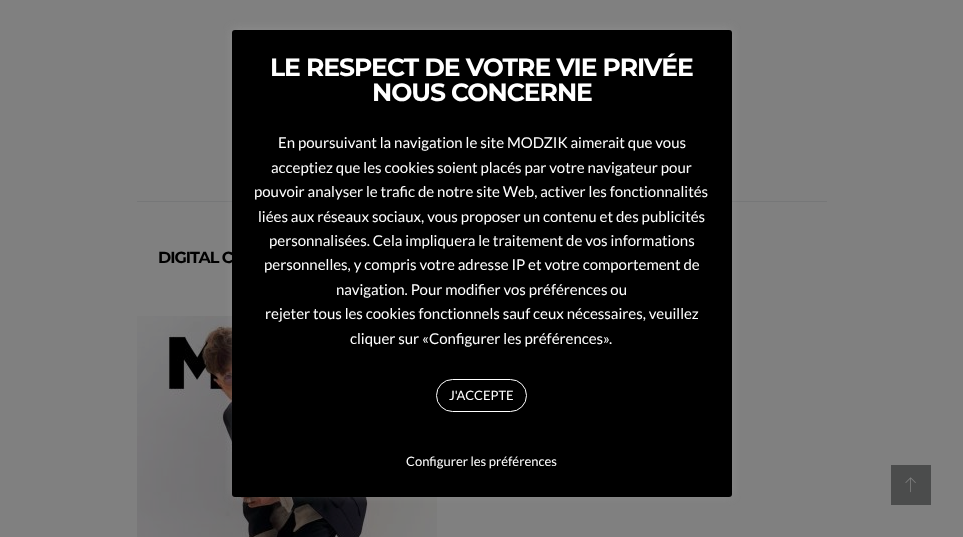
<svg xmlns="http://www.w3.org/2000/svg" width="963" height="537">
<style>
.a{font:bold 16px Montserrat;letter-spacing:-1px;fill:#000}
.b{font:bold 25px Montserrat;letter-spacing:-1px;fill:#fff}
.c{font:15px Lato;fill:#fff}
.d{font:13px Lato;fill:#fff}
</style>
<rect width="100%" height="100%" fill="#808080"/>
<path fill="#767778" d="M137 201h690v1H137z"/>
<image href="1.png" x="137" y="316" width="300" height="221"/>
<rect fill="#acabab4d" filter="blur(5px)" x="232" y="29" width="500" height="467" rx="3"/>
<rect fill="#000" x="232" y="30" width="500" height="467" rx="3"/>
<rect fill="none" stroke="#fff" x="436.5" y="379.5" width="90" height="32" rx="16"/>
<path fill="#4b4c4c" d="M891 465h40v40H891z"/>
<image href="2.png" x="905" y="477" width="11" height="16"/>
<text class="a" x="158" y="263">DIGITAL C</text>
<text class="b" x="270" y="76">LE RESPECT DE VOTRE VIE PRIVÉE</text>
<text class="b" x="372" y="101">NOUS CONCERNE</text>
<text class="c" x="278" y="148">En poursuivant la navigation le site MODZIK aimerait que vous</text>
<text class="c" x="271" y="173">acceptiez que les cookies soient placés par votre navigateur pour</text>
<text class="c" x="254" y="197">pouvoir analyser le trafic de notre site Web, activer les fonctionnalités</text>
<text class="c" x="258" y="222">liées aux réseaux sociaux, vous proposer un contenu et des publicités</text>
<text class="c" x="269" y="246">personnalisées. Cela impliquera le traitement de vos informations</text>
<text class="c" x="264" y="270">personnelles, y compris votre adresse IP et votre comportement de</text>
<text class="c" x="336" y="295">navigation. Pour modifier vos préférences ou</text>
<text class="c" x="265" y="319">rejeter tous les cookies fonctionnels sauf ceux nécessaires, veuillez</text>
<text class="c" x="350" y="344">cliquer sur «Configurer les préférences».</text>
<text class="d" x="449" y="400">J'ACCEPTE</text>
<text class="d" x="406" y="466">Configurer les préférences</text>
</svg>
